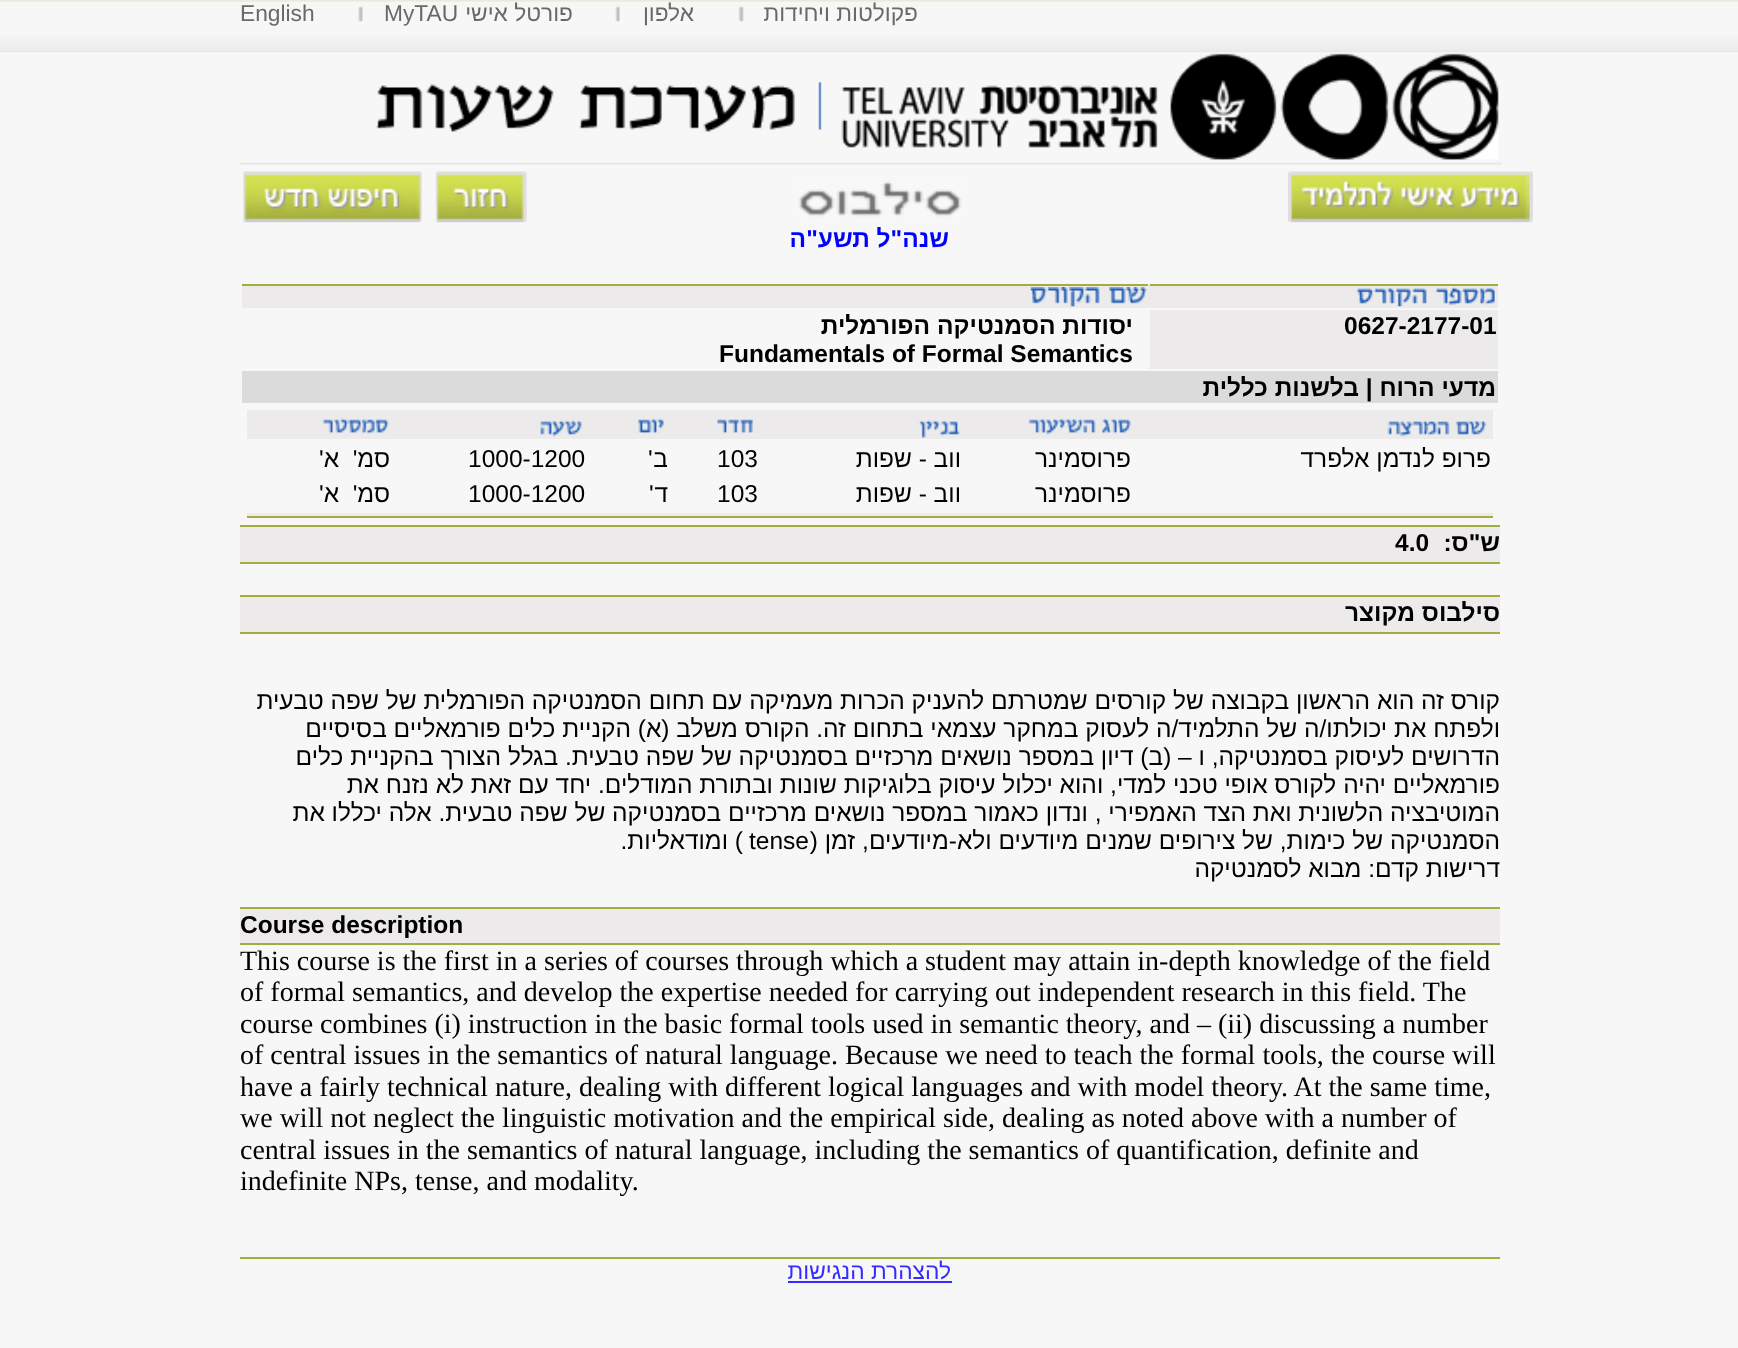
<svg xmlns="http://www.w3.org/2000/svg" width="1738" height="1348">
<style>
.a{font:22.75px Liberation Sans;fill:#696969}
.b{font:22.75px Liberation Sans;direction:rtl;fill:#696969}
.c{font:bold 24.5px Liberation Sans;direction:rtl;fill:#00f}
.d{font:bold 24.5px Liberation Sans;direction:rtl;fill:#000}
.e{font:bold 24.5px Liberation Sans;fill:#000}
.f{font:24.5px Liberation Sans;direction:rtl;fill:#000}
.g{font:24.5px Liberation Sans;fill:#000}
.h{font:28px Liberation Serif;fill:#000}
.i{font:22.75px Liberation Sans;direction:rtl;fill:#342cff}
</style>
<rect width="100%" height="100%" fill="#f7f7f7"/>
<image href="1.png" x="0" y="0" width="1738" height="53"/>
<image href="2.png" x="358" y="6" width="5" height="16"/>
<image href="3.png" x="615" y="6" width="5" height="16"/>
<image href="4.png" x="738" y="6" width="6" height="16"/>
<image href="5.png" x="239" y="53" width="1263" height="112"/>
<image href="6.png" x="243" y="171" width="179" height="52"/>
<image href="7.png" x="435" y="171" width="92" height="52"/>
<image href="8.png" x="1288" y="171" width="245" height="52"/>
<image href="9.png" x="798" y="181" width="164" height="36"/>
<path fill="#eceaeb" d="M242 284h1256v24H242z"/>
<path fill="#a3ad3d" d="M242 284h906v2H242z"/>
<image href="10.png" x="1030" y="287" width="117" height="20"/>
<path fill="#a3ad3d" d="M1150 284h348v2H1150z"/>
<image href="11.png" x="1356" y="287" width="139" height="20"/>
<path fill="#eceaeb" d="M1150 310h348v59H1150z"/>
<path fill="#dbdbdb" d="M242 371h1256v32H242z"/>
<path fill="#eceaeb" d="M247 410h1246v29H247z"/>
<image href="12.png" x="323" y="418" width="66" height="17"/>
<image href="13.png" x="540" y="419" width="42" height="18"/>
<image href="14.png" x="637" y="418" width="28" height="15"/>
<image href="15.png" x="717" y="419" width="37" height="14"/>
<image href="16.png" x="918" y="419" width="42" height="19"/>
<image href="17.png" x="1028" y="418" width="103" height="17"/>
<image href="18.png" x="1387" y="420" width="100" height="17"/>
<path fill="#eceaeb" d="M247 513h1246v3H247z"/>
<path fill="#a3ad3d" d="M247 516h1246v2H247z"/>
<path fill="#eceaeb" d="M240 527h1260v35H240z"/>
<path fill="#a3ad3d" d="M240 525h1260v2H240z"/>
<path fill="#a3ad3d" d="M240 562h1260v2H240z"/>
<path fill="#eceaeb" d="M240 597h1260v35H240z"/>
<path fill="#a3ad3d" d="M240 595h1260v2H240z"/>
<path fill="#a3ad3d" d="M240 632h1260v2H240z"/>
<path fill="#eceaeb" d="M240 909h1260v34H240z"/>
<path fill="#a3ad3d" d="M240 907h1260v2H240z"/>
<path fill="#a3ad3d" d="M240 943h1260v2H240z"/>
<path fill="#a3ad3d" d="M240 1257h1260v2H240z"/>
<path fill="#342cff" d="M788 1281h164v2H788z"/>
<text class="a" x="240" y="21">English</text>
<text class="a" x="384" y="21">MyTAU</text>
<text class="b" x="573" y="21">פורטל אישי</text>
<text class="b" x="694" y="21">אלפון</text>
<text class="b" x="918" y="21">פקולטות ויחידות</text>
<text class="c" x="949" y="247">שנה"ל תשע"ה</text>
<text class="d" x="1133" y="334">יסודות הסמנטיקה הפורמלית</text>
<text class="e" x="719" y="362">Fundamentals of Formal Semantics</text>
<text class="e" x="1344" y="334">0627-2177-01</text>
<text class="d" x="1496" y="396">מדעי הרוח | בלשנות כללית</text>
<text class="f" xml:space="preserve" x="390" y="467">סמ'  א'</text>
<text class="g" x="468" y="467">1000-1200</text>
<text class="g" x="648" y="467">'</text>
<text class="f" x="668" y="467">ב</text>
<text class="g" x="717" y="467">103</text>
<text class="f" x="961" y="467">ווב - שפות</text>
<text class="f" x="1131" y="467">פרוסמינר</text>
<text class="f" x="1491" y="467">פרופ לנדמן אלפרד</text>
<text class="f" xml:space="preserve" x="390" y="502">סמ'  א'</text>
<text class="g" x="468" y="502">1000-1200</text>
<text class="g" x="649" y="502">'</text>
<text class="f" x="668" y="502">ד</text>
<text class="g" x="717" y="502">103</text>
<text class="f" x="961" y="502">ווב - שפות</text>
<text class="f" x="1131" y="502">פרוסמינר</text>
<text class="e" x="1395" y="551">4.0</text>
<text class="d" x="1500" y="551">ש"ס:</text>
<text class="d" x="1500" y="621">סילבוס מקוצר</text>
<text class="f" x="1500" y="709">קורס זה הוא הראשון בקבוצה של קורסים שמטרתם להעניק הכרות מעמיקה עם תחום הסמנטיקה הפורמלית של שפה טבעית</text>
<text class="f" x="1500" y="737">ולפתח את יכולתו/ה של התלמיד/ה לעסוק במחקר עצמאי בתחום זה. הקורס משלב (א) הקניית כלים פורמאליים בסיסיים</text>
<text class="f" x="1500" y="765">הדרושים לעיסוק בסמנטיקה, ו – (ב) דיון במספר נושאים מרכזיים בסמנטיקה של שפה טבעית. בגלל הצורך בהקניית כלים</text>
<text class="f" x="1500" y="793">פורמאליים יהיה לקורס אופי טכני למדי, והוא יכלול עיסוק בלוגיקות שונות ובתורת המודלים. יחד עם זאת לא נזנח את</text>
<text class="f" x="1500" y="821">המוטיבציה הלשונית ואת הצד האמפירי , ונדון כאמור במספר נושאים מרכזיים בסמנטיקה של שפה טבעית. אלה יכללו את</text>
<text class="f" x="743" y="849">) ומודאליות.</text>
<text class="g" x="749" y="849">tense</text>
<text class="f" x="1500" y="849">הסמנטיקה של כימות, של צירופים שמנים מיודעים ולא-מיודעים, זמן (</text>
<text class="f" x="1500" y="877">דרישות קדם: מבוא לסמנטיקה</text>
<text class="e" x="240" y="933">Course description</text>
<text class="h" x="240" y="970">This course is the first in a series of courses through which a student may attain in-depth knowledge of the field</text>
<text class="h" x="240" y="1001">of formal semantics, and develop the expertise needed for carrying out independent research in this field. The</text>
<text class="h" x="240" y="1033">course combines (i) instruction in the basic formal tools used in semantic theory, and – (ii) discussing a number</text>
<text class="h" x="240" y="1064">of central issues in the semantics of natural language. Because we need to teach the formal tools, the course will</text>
<text class="h" x="240" y="1096">have a fairly technical nature, dealing with different logical languages and with model theory. At the same time,</text>
<text class="h" x="240" y="1127">we will not neglect the linguistic motivation and the empirical side, dealing as noted above with a number of</text>
<text class="h" x="240" y="1159">central issues in the semantics of natural language, including the semantics of quantification, definite and</text>
<text class="h" x="240" y="1190">indefinite NPs, tense, and modality.</text>
<text class="i" x="951" y="1279">להצהרת הנגישות</text>
</svg>
